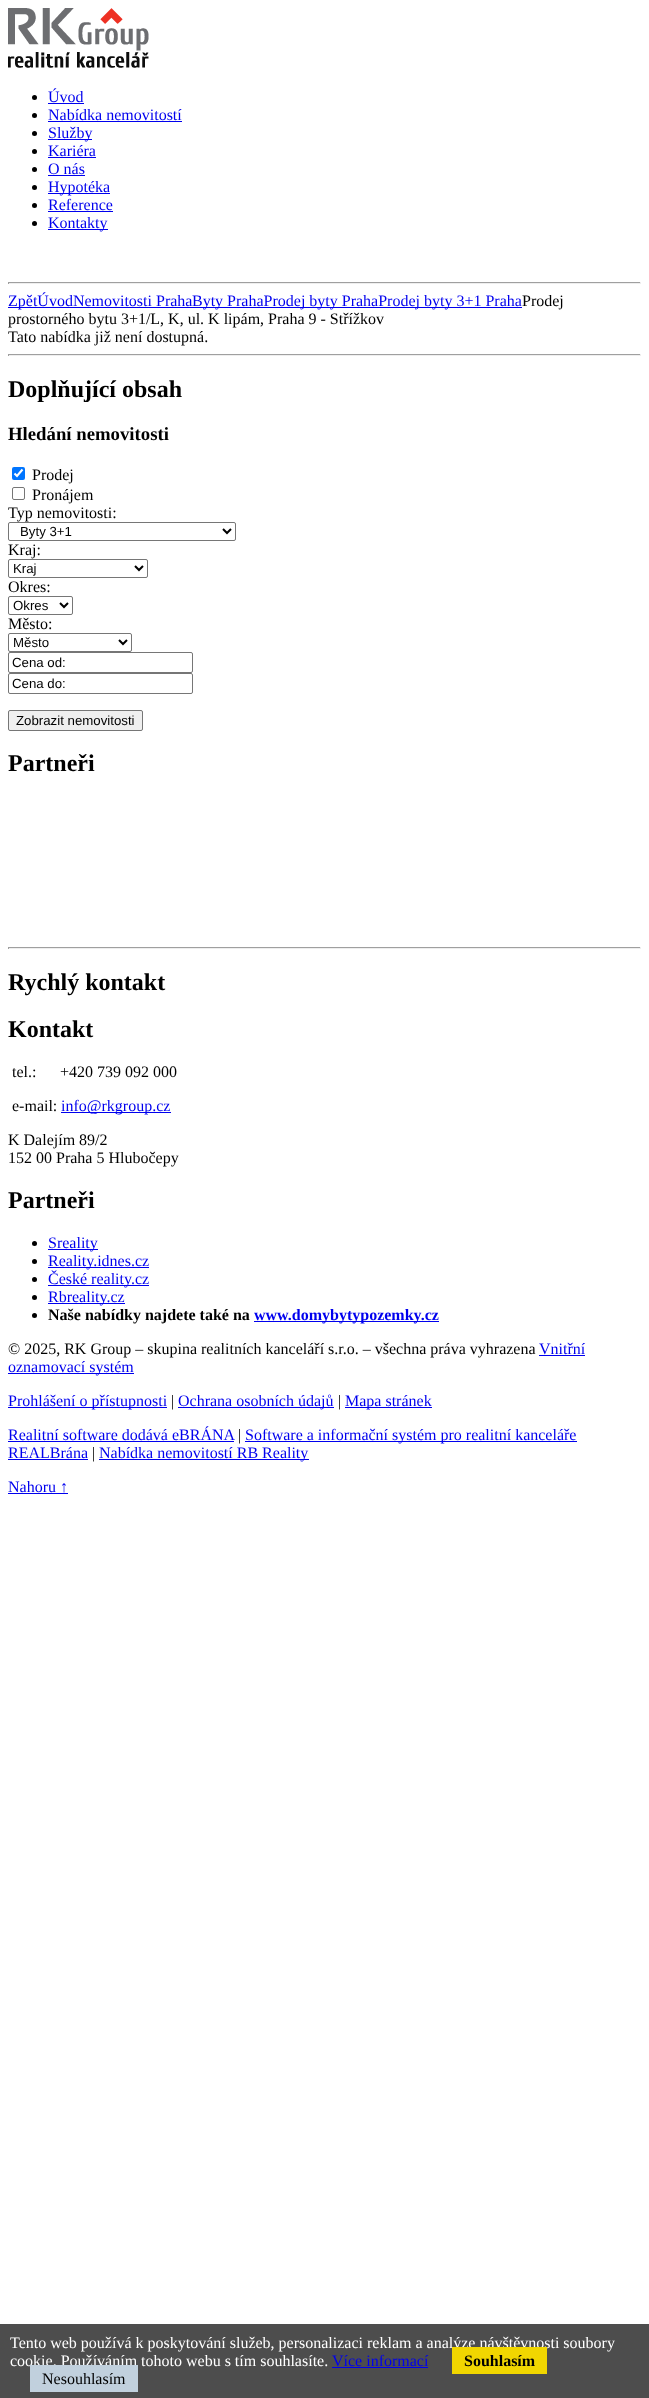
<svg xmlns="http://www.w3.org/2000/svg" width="649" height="2398">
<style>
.a{font:16px Liberation Serif;fill:#00e}
.b{font:16px Liberation Serif;fill:#000}
.c{font:bold 24px Liberation Serif;fill:#000}
.d{font:bold 18.75px Liberation Serif;fill:#000}
.e{font:13.25px Liberation Sans;fill:#000}
.f{font:bold 16px Liberation Serif;fill:#000}
.g{font:bold 16px Liberation Serif;fill:#00e}
.h{font:16px Liberation Serif;fill:#fff}
</style>
<rect width="100%" height="100%" fill="#fff"/>
<image href="1.png" x="8" y="8" width="141" height="60"/>
<circle fill="#000" cx="34.5" cy="97.5" r="2.5"/>
<path fill="#00e" d="M48 103h36v1H48z"/>
<circle fill="#000" cx="34.5" cy="115.5" r="2.5"/>
<path fill="#00e" d="M48 121h134v1H48z"/>
<circle fill="#000" cx="34.5" cy="133.5" r="2.5"/>
<path fill="#00e" d="M48 139h44v1H48z"/>
<circle fill="#000" cx="34.5" cy="151.5" r="2.5"/>
<path fill="#00e" d="M48 157h48v1H48z"/>
<circle fill="#000" cx="34.5" cy="169.5" r="2.5"/>
<path fill="#00e" d="M48 175h37v1H48z"/>
<circle fill="#000" cx="34.5" cy="187.5" r="2.5"/>
<path fill="#00e" d="M48 193h62v1H48z"/>
<circle fill="#000" cx="34.5" cy="205.5" r="2.5"/>
<path fill="#00e" d="M48 211h65v1H48z"/>
<circle fill="#000" cx="34.5" cy="223.5" r="2.5"/>
<path fill="#00e" d="M48 229h60v1H48z"/>
<path fill="#9f9f9f" d="M8 282h633v1H8z"/>
<path fill="#eee" d="M640 282h1v2H640z"/>
<path fill="#eee" d="M8 283h633v1H8z"/>
<path fill="#9f9f9f" d="M8 282h1v2H8z"/>
<path fill="#00e" d="M8 307h29v1H8z"/>
<path fill="#00e" d="M37 307h485v1H37z"/>
<path fill="#9f9f9f" d="M8 354h633v1H8z"/>
<path fill="#eee" d="M640 354h1v2H640z"/>
<path fill="#eee" d="M8 355h633v1H8z"/>
<path fill="#9f9f9f" d="M8 354h1v2H8z"/>
<rect fill="#0075ff" x="12" y="467" width="13" height="13" rx="2"/>
<path fill="none" stroke="#fff" stroke-width="2.1" d="M14.5 473.5l2.5 2.5l5.5-6.5"/>
<rect fill="none" stroke="#767676" x="12.5" y="487.5" width="12" height="12" rx="1.5"/>
<rect fill="none" stroke="#767676" x="8.5" y="522.5" width="227" height="18" rx="1.5"/>
<path fill="none" stroke="#000" stroke-width="2" d="M223 529l4 4l4-4"/>
<rect fill="none" stroke="#767676" x="8.5" y="559.5" width="139" height="18" rx="1.5"/>
<path fill="none" stroke="#000" stroke-width="2" d="M135 566l4 4l4-4"/>
<rect fill="none" stroke="#767676" x="8.5" y="596.5" width="64" height="18" rx="1.5"/>
<path fill="none" stroke="#000" stroke-width="2" d="M60 603l4 4l4-4"/>
<rect fill="none" stroke="#767676" x="8.5" y="633.5" width="123" height="18" rx="1.5"/>
<path fill="none" stroke="#000" stroke-width="2" d="M119 640l4 4l4-4"/>
<rect fill="none" stroke="#767676" x="8.5" y="652.5" width="184" height="20" rx="1.5"/>
<rect fill="none" stroke="#767676" x="8.5" y="673.5" width="184" height="20" rx="1.5"/>
<rect fill="#efefef" stroke="#767676" x="8.5" y="710.5" width="134" height="20" rx="1.5"/>
<path fill="#9f9f9f" d="M8 947h633v1H8z"/>
<path fill="#eee" d="M640 947h1v2H640z"/>
<path fill="#eee" d="M8 948h633v1H8z"/>
<path fill="#9f9f9f" d="M8 947h1v2H8z"/>
<path fill="#00e" d="M61 1112h110v1H61z"/>
<circle fill="#000" cx="34.5" cy="1243.5" r="2.5"/>
<path fill="#00e" d="M48 1249h50v1H48z"/>
<circle fill="#000" cx="34.5" cy="1261.5" r="2.5"/>
<path fill="#00e" d="M48 1267h101v1H48z"/>
<circle fill="#000" cx="34.5" cy="1279.5" r="2.5"/>
<path fill="#00e" d="M48 1285h101v1H48z"/>
<circle fill="#000" cx="34.5" cy="1297.5" r="2.5"/>
<path fill="#00e" d="M48 1303h77v1H48z"/>
<circle fill="#000" cx="34.5" cy="1315.5" r="2.5"/>
<path fill="#00e" d="M254 1321h185v1H254z"/>
<path fill="#00e" d="M539 1355h46v1H539z"/>
<path fill="#00e" d="M8 1373h126v1H8z"/>
<path fill="#00e" d="M8 1407h159v1H8z"/>
<path fill="#00e" d="M178 1407h156v1H178z"/>
<path fill="#00e" d="M345 1407h87v1H345z"/>
<path fill="#00e" d="M8 1441h226v1H8z"/>
<path fill="#00e" d="M245 1441h332v1H245z"/>
<path fill="#00e" d="M8 1459h80v1H8z"/>
<path fill="#00e" d="M99 1459h210v1H99z"/>
<path fill="#00e" d="M8 1493h60v1H8z"/>
<path fill="#4d4d4d" d="M0 2324h649v74H0z"/>
<path fill="#00e" d="M332 2367h96v1H332z"/>
<text class="a" x="48" y="102">Úvod</text>
<text class="a" x="48" y="120">Nabídka nemovitostí</text>
<text class="a" x="48" y="138">Služby</text>
<text class="a" x="48" y="156">Kariéra</text>
<text class="a" x="48" y="174">O nás</text>
<text class="a" x="48" y="192">Hypotéka</text>
<text class="a" x="48" y="210">Reference</text>
<text class="a" x="48" y="228">Kontakty</text>
<text class="a" x="8" y="306">ZpětÚvodNemovitosti Praha</text>
<text class="a" x="192" y="306">Byty PrahaProdej byty PrahaProdej byty 3+1 Praha</text>
<text class="b" x="522" y="306">Prodej</text>
<text class="b" x="8" y="324">prostorného bytu 3+1/L, K, ul. K lipám, Praha 9 - Střížkov</text>
<text class="b" x="8" y="342">Tato nabídka již není dostupná.</text>
<text class="c" x="8" y="397">Doplňující obsah</text>
<text class="d" x="8" y="440">Hledání nemovitosti</text>
<text class="b" x="32" y="480">Prodej</text>
<text class="b" x="32" y="500">Pronájem</text>
<text class="b" x="8" y="518">Typ nemovitosti:</text>
<text class="e" x="20" y="536">Byty 3+1</text>
<text class="b" x="8" y="555">Kraj:</text>
<text class="e" x="13" y="573">Kraj</text>
<text class="b" x="8" y="592">Okres:</text>
<text class="e" x="13" y="610">Okres</text>
<text class="b" x="8" y="629">Město:</text>
<text class="e" x="13" y="647">Město</text>
<text class="e" x="12" y="667">Cena od:</text>
<text class="e" x="12" y="688">Cena do:</text>
<text class="e" x="16" y="725">Zobrazit nemovitosti</text>
<text class="c" x="8" y="771">Partneři</text>
<text class="c" x="8" y="990">Rychlý kontakt</text>
<text class="c" x="8" y="1037">Kontakt</text>
<text class="b" x="12" y="1077">tel.:</text>
<text class="b" x="60" y="1077">+420 739 092 000</text>
<text class="b" x="12" y="1111">e-mail:</text>
<text class="a" x="61" y="1111">info@rkgroup.cz</text>
<text class="b" x="8" y="1145">K Dalejím 89/2</text>
<text class="b" x="8" y="1163">152 00 Praha 5 Hlubočepy</text>
<text class="c" x="8" y="1208">Partneři</text>
<text class="a" x="48" y="1248">Sreality</text>
<text class="a" x="48" y="1266">Reality.idnes.cz</text>
<text class="a" x="48" y="1284">České reality.cz</text>
<text class="a" x="48" y="1302">Rbreality.cz</text>
<text class="f" x="48" y="1320">Naše nabídky najdete také na</text>
<text class="g" x="254" y="1320">www.domybytypozemky.cz</text>
<text class="b" x="8" y="1354">© 2025, RK Group – skupina realitních kanceláří s.r.o. – všechna práva vyhrazena</text>
<text class="a" x="539" y="1354">Vnitřní</text>
<text class="a" x="8" y="1372">oznamovací systém</text>
<text class="a" x="8" y="1406">Prohlášení o přístupnosti</text>
<text class="b" x="171" y="1406">|</text>
<text class="a" x="178" y="1406">Ochrana osobních údajů</text>
<text class="b" x="338" y="1406">|</text>
<text class="a" x="345" y="1406">Mapa stránek</text>
<text class="a" x="8" y="1440">Realitní software dodává eBRÁNA</text>
<text class="b" x="238" y="1440">|</text>
<text class="a" x="245" y="1440">Software a informační systém pro realitní kanceláře</text>
<text class="a" x="8" y="1458">REALBrána</text>
<text class="b" x="92" y="1458">|</text>
<text class="a" x="99" y="1458">Nabídka nemovitostí RB Reality</text>
<text class="a" x="8" y="1492">Nahoru ↑</text>
<text class="h" x="10" y="2348">Tento web používá k poskytování služeb, personalizaci reklam a analýze návštěvnosti soubory</text>
<text class="h" x="10" y="2366">cookie. Používáním tohoto webu s tím souhlasíte.</text>
<text class="a" x="332" y="2366">Více informací</text>
<path fill="#f1d600" d="M452 2347h95v27H452z"/>
<text class="f" x="464" y="2366">Souhlasím</text>
<path fill="#c1d0dd" d="M30 2365h108v27H30z"/>
<text class="b" x="42" y="2384">Nesouhlasím</text>
</svg>
